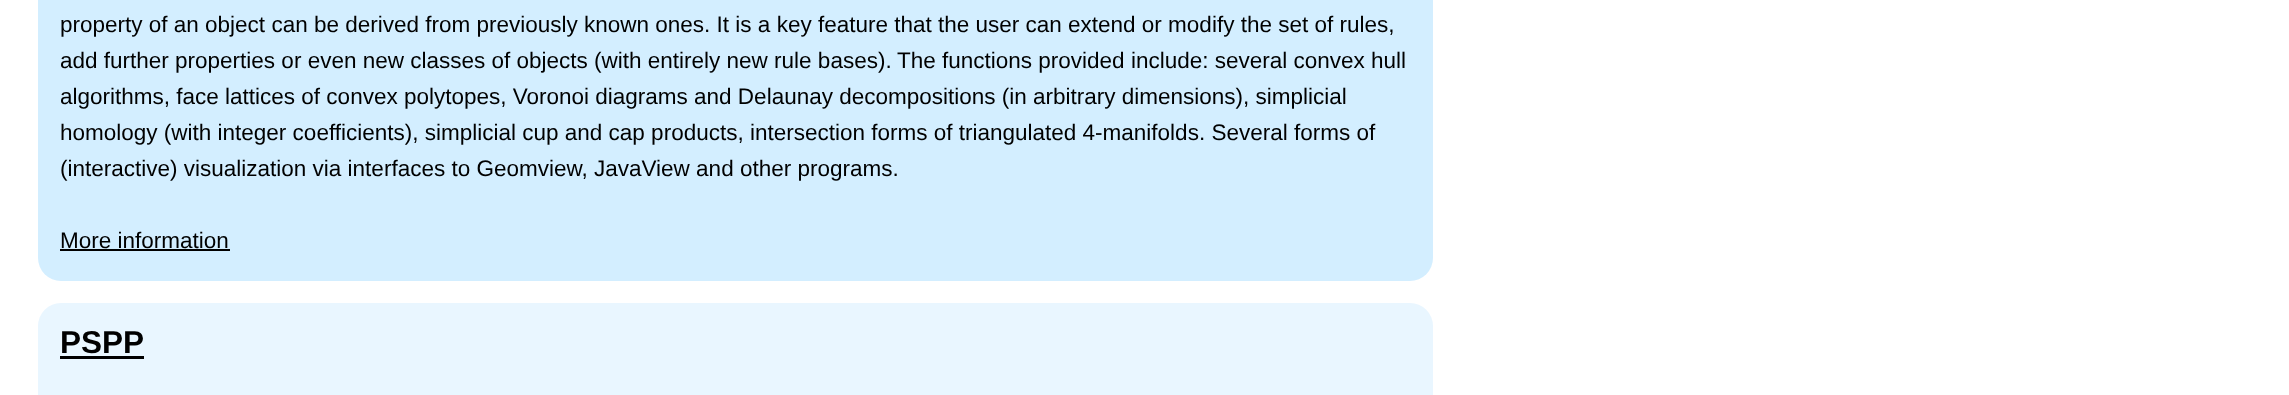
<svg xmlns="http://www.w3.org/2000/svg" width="2289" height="395">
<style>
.a{font:22.5px Liberation Sans;fill:#000}
.b{font:bold 31.5px Liberation Sans;fill:#000}
</style>
<rect width="100%" height="100%" fill="#fff"/>
<rect fill="#d3eeff" x="38" y="-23" width="1395" height="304" rx="23"/>
<path fill="#000" d="M60 249h170v2H60z"/>
<rect fill="#e9f6ff" x="38" y="303" width="1395" height="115" rx="23"/>
<path fill="#000" d="M60 356h84v3H60z"/>
<text class="a" x="60" y="32">property of an object can be derived from previously known ones. It is a key feature that the user can extend or modify the set of rules,</text>
<text class="a" x="60" y="68">add further properties or even new classes of objects (with entirely new rule bases).</text>
<text class="a" x="897" y="68">The functions provided include: several convex hull</text>
<text class="a" x="60" y="104">algorithms, face lattices of convex polytopes, Voronoi diagrams and Delaunay decompositions (in arbitrary dimensions), simplicial</text>
<text class="a" x="60" y="140">homology (with integer coefficients), simplicial cup and cap products, intersection forms of triangulated 4-manifolds. Several forms of</text>
<text class="a" x="60" y="176">(interactive) visualization via interfaces to Geomview, JavaView and other programs.</text>
<text class="a" x="60" y="248">More information</text>
<text class="b" x="60" y="353">PSPP</text>
</svg>
